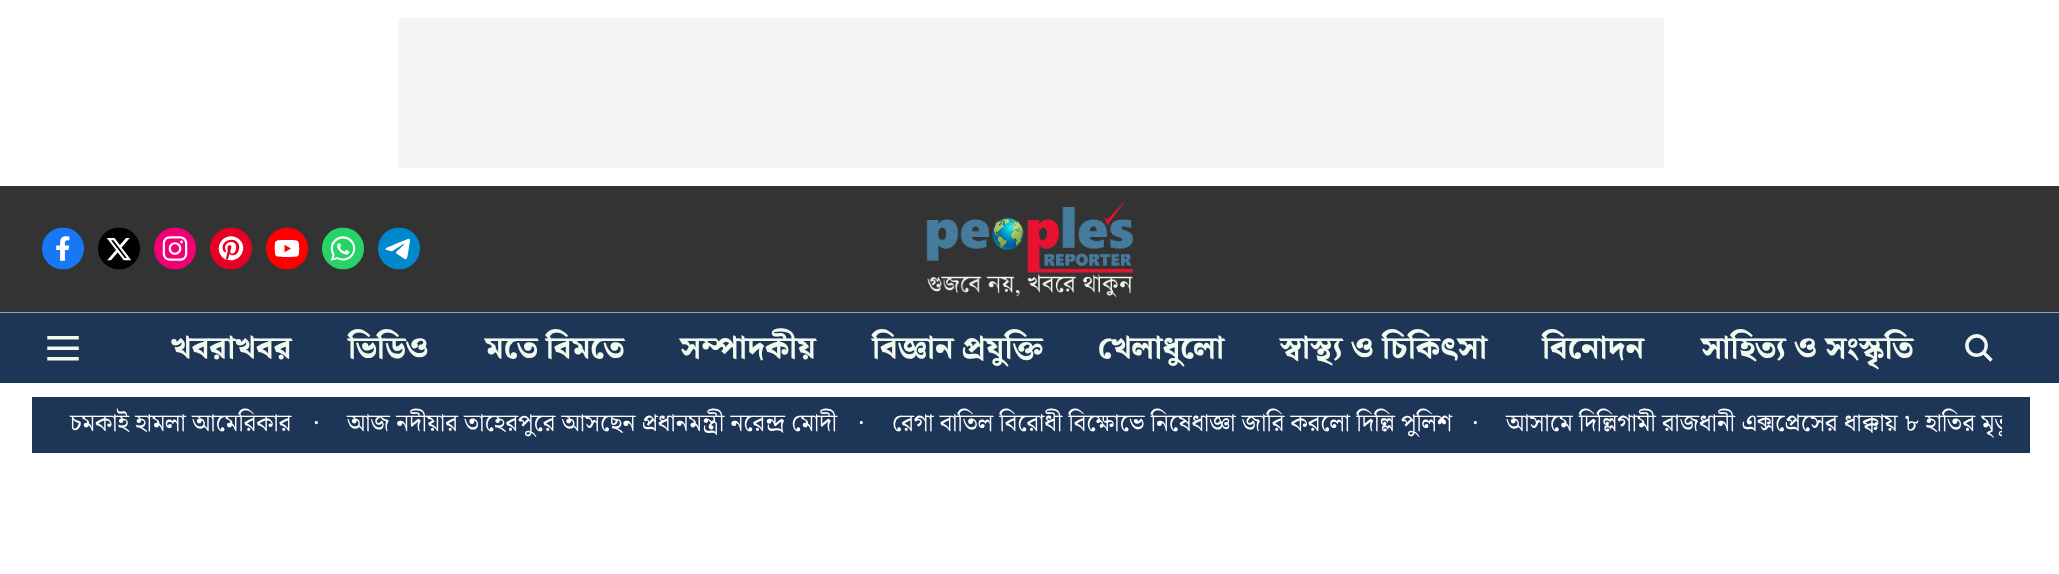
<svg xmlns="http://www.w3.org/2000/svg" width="2059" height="574">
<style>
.a{font:800 31.5px Noto Serif Bengali;fill:#f1faee}
.b{font:24.5px Noto Serif Bengali;fill:#fff}
</style>
<defs>
<clipPath id="clip1"><path d="M60 408h1942v37H60z"/></clipPath>
</defs>
<rect width="100%" height="100%" fill="#fff"/>
<path fill="#f4f5f7" d="M398 18h1266v150H398z"/>
<path fill="#333" d="M0 186h2059v126H0z"/>
<path fill="#a4a4a4" d="M0 312h2059v1H0z"/>
<image href="1.png" x="42" y="227" width="42" height="43"/>
<image href="2.png" x="98" y="227" width="42" height="43"/>
<image href="3.png" x="154" y="227" width="42" height="43"/>
<image href="4.png" x="210" y="227" width="42" height="43"/>
<image href="5.png" x="266" y="227" width="42" height="43"/>
<image href="6.png" x="322" y="227" width="42" height="43"/>
<image href="7.png" x="378" y="227" width="42" height="43"/>
<image href="8.png" x="926" y="200" width="208" height="98"/>
<path fill="#1d3557" d="M0 313h2059v70H0z"/>
<image href="9.png" x="47" y="336" width="32" height="25"/>
<image href="10.png" x="1965" y="334" width="28" height="28"/>
<path fill="#1d3557" d="M32 397h1998v56H32z"/>
<text class="a" x="171" y="358">খবরাখবর</text>
<text class="a" x="348" y="358">ভিডিও</text>
<text class="a" x="485" y="358">মতে বিমতে</text>
<text class="a" x="680" y="358">সম্পাদকীয়</text>
<text class="a" x="872" y="358">বিজ্ঞান প্রযুক্তি</text>
<text class="a" x="1098" y="358">খেলাধুলো</text>
<text class="a" x="1280" y="358">স্বাস্থ্য ও চিকিৎসা</text>
<text class="a" x="1542" y="358">বিনোদন</text>
<text class="a" x="1701" y="358">সাহিত্য ও সংস্কৃতি</text>
<text class="b" x="70" y="431">চমকাই হামলা আমেরিকার</text>
<text class="b" x="312" y="424">.</text>
<text class="b" x="347" y="431">আজ নদীয়ার তাহেরপুরে আসছেন প্রধানমন্ত্রী নরেন্দ্র মোদী</text>
<text class="b" x="857" y="424">.</text>
<text class="b" x="892" y="431">রেগা বাতিল বিরোধী বিক্ষোভে নিষেধাজ্ঞা জারি করলো দিল্লি পুলিশ</text>
<text class="b" x="1471" y="424">.</text>
<g clip-path="url(#clip1)">
<text class="b" x="1506" y="431">আসামে দিল্লিগামী রাজধানী এক্সপ্রেসের ধাক্কায় ৮ হাতির মৃত্যু</text>
</g>
</svg>
